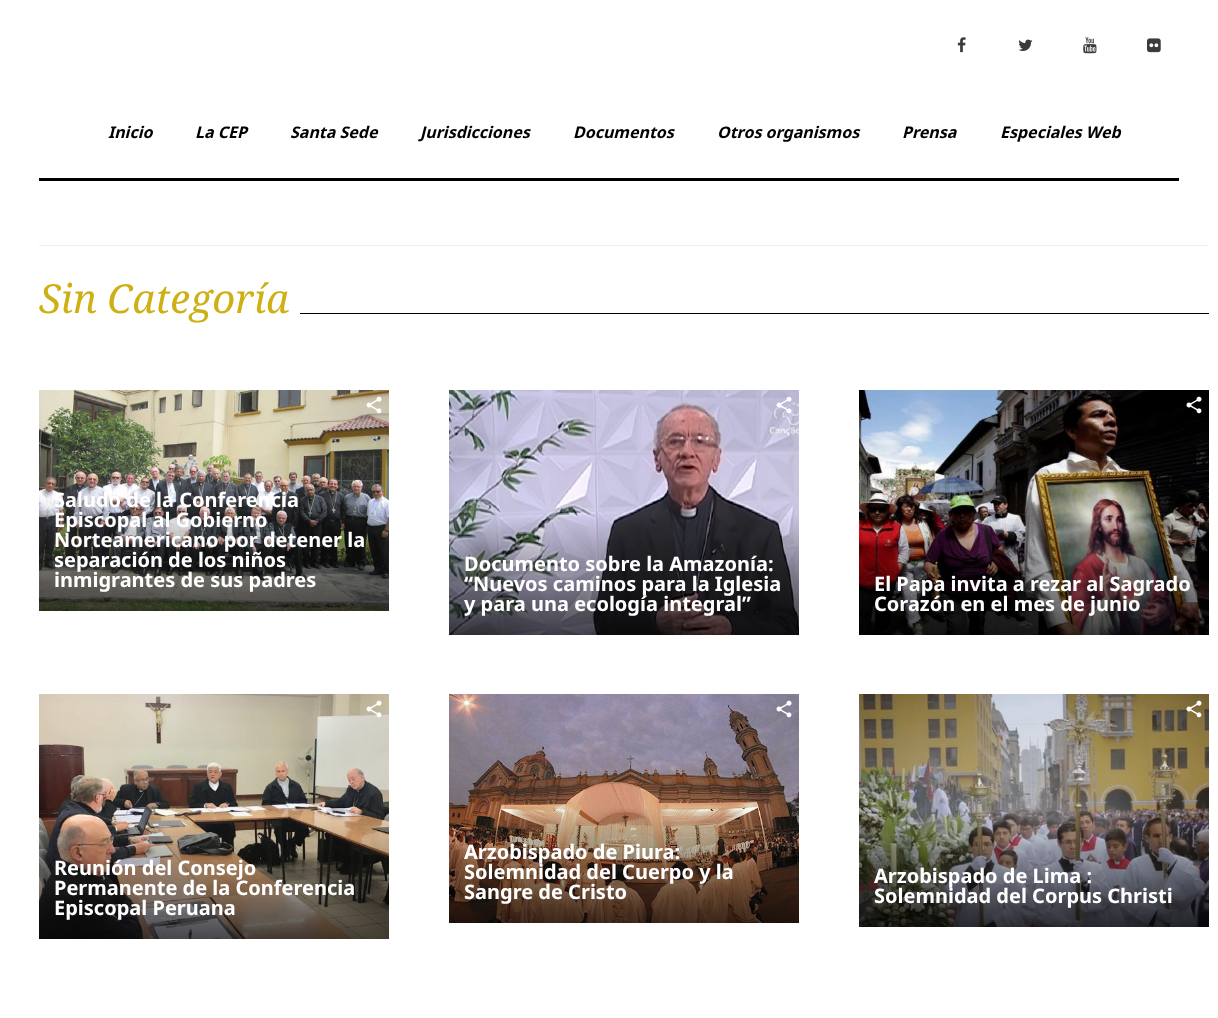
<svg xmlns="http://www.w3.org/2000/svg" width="1218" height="1018">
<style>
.a{font:italic bold 16px Noto Sans;fill:#000}
.b{font:italic 40px Noto Serif;fill:#ceb014}
.c{font:bold 20px Noto Sans;fill:#fff}
</style>
<rect width="100%" height="100%" fill="#fff"/>
<path fill="#000" d="M39 178h1140v3H39z"/>
<image href="1.png" x="957" y="37" width="9" height="16"/>
<image href="2.png" x="1018" y="39" width="15" height="12"/>
<image href="3.png" x="1083" y="37" width="14" height="17"/>
<image href="4.png" x="1147" y="38" width="14" height="15"/>
<path fill="#eee" d="M39 245h1170v1H39z"/>
<path fill="#000" d="M300 313h909v1H300z"/>
<image href="5.png" x="39" y="390" width="350" height="221"/>
<image href="6.png" x="366" y="396" width="16" height="18"/>
<image href="7.png" x="449" y="390" width="350" height="245"/>
<image href="8.png" x="776" y="396" width="16" height="18"/>
<image href="9.png" x="859" y="390" width="350" height="245"/>
<image href="10.png" x="1186" y="396" width="16" height="18"/>
<image href="11.png" x="39" y="694" width="350" height="245"/>
<image href="12.png" x="366" y="700" width="16" height="18"/>
<image href="13.png" x="449" y="694" width="350" height="229"/>
<image href="14.png" x="776" y="700" width="16" height="18"/>
<image href="15.png" x="859" y="694" width="350" height="233"/>
<image href="16.png" x="1186" y="700" width="16" height="18"/>
<text class="a" x="108" y="138">Inicio</text>
<text class="a" x="195" y="138">La CEP</text>
<text class="a" x="290" y="138">Santa Sede</text>
<text class="a" x="420" y="138">Jurisdicciones</text>
<text class="a" x="573" y="138">Documentos</text>
<text class="a" x="717" y="138">Otros organismos</text>
<text class="a" x="902" y="138">Prensa</text>
<text class="a" x="1000" y="138">Especiales Web</text>
<text class="b" x="39" y="313">Sin Categoría</text>
<text class="c" x="54" y="507">Saludo de la Conferencia</text>
<text class="c" x="54" y="527">Episcopal al Gobierno</text>
<text class="c" x="54" y="547">Norteamericano por detener la</text>
<text class="c" x="54" y="567">separación de los niños</text>
<text class="c" x="54" y="587">inmigrantes de sus padres</text>
<text class="c" x="464" y="571">Documento sobre la Amazonía:</text>
<text class="c" x="464" y="591">“Nuevos caminos para la Iglesia</text>
<text class="c" x="464" y="611">y para una ecología integral”</text>
<text class="c" x="874" y="591">El Papa invita a rezar al Sagrado</text>
<text class="c" x="874" y="611">Corazón en el mes de junio</text>
<text class="c" x="54" y="875">Reunión del Consejo</text>
<text class="c" x="54" y="895">Permanente de la Conferencia</text>
<text class="c" x="54" y="915">Episcopal Peruana</text>
<text class="c" x="464" y="859">Arzobispado de Piura:</text>
<text class="c" x="464" y="879">Solemnidad del Cuerpo y la</text>
<text class="c" x="464" y="899">Sangre de Cristo</text>
<text class="c" x="874" y="883">Arzobispado de Lima :</text>
<text class="c" x="874" y="903">Solemnidad del Corpus Christi</text>
</svg>
